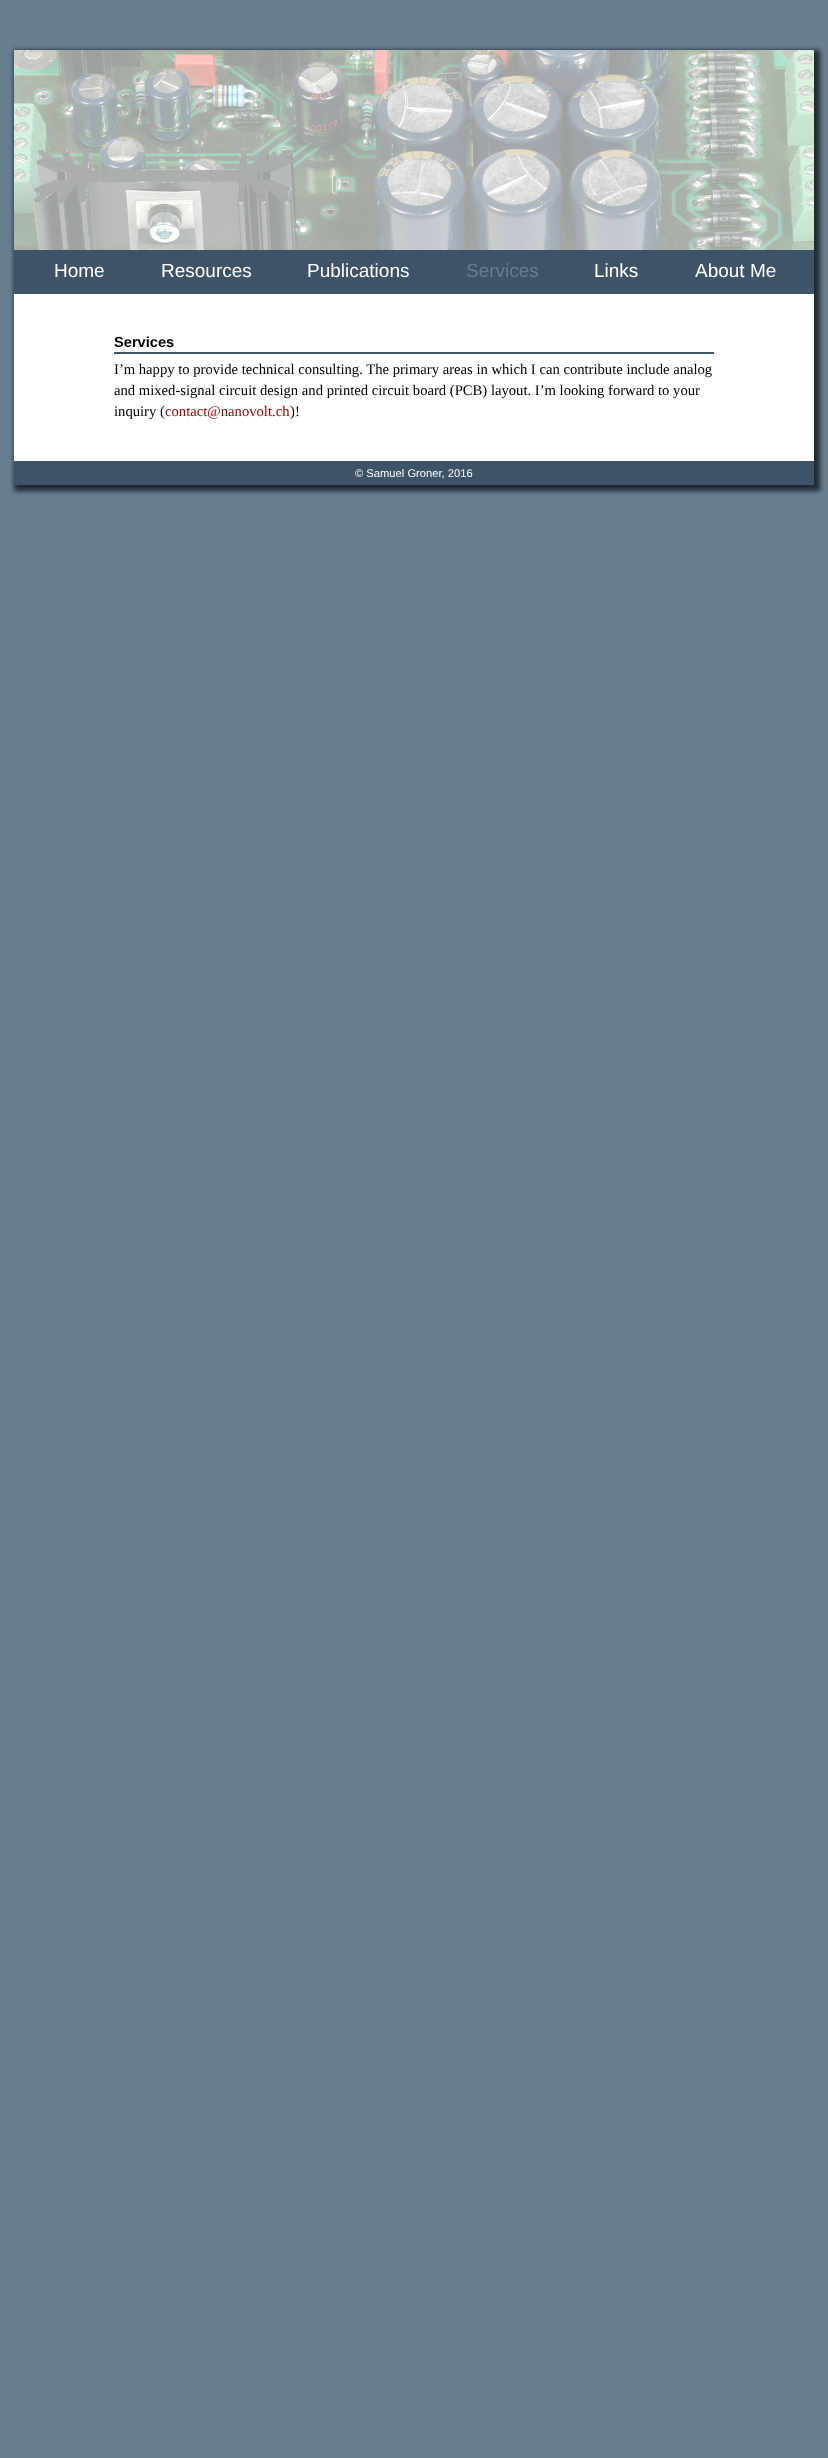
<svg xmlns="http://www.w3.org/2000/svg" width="828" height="2458">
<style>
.a{font:19px Liberation Sans;fill:#fff}
.b{font:19px Liberation Sans;fill:#687f92}
.c{font:bold 14.65px Liberation Sans;fill:#000}
.d{font:14.65px Liberation Serif;fill:#000}
.e{font:14.65px Liberation Serif;fill:#ab0000}
.f{font:11.2px Liberation Sans;fill:#fff}
</style>
<rect width="100%" height="100%" fill="#687f92"/>
<path fill="#1f2933" filter="blur(2.5px)" d="M14 50h806v441H14z"/>
<path fill="#fff" d="M14 294h800v167H14z"/>
<image href="1.png" x="14" y="50" width="800" height="200"/>
<path fill="#3e5367" d="M14 250h800v44H14z"/>
<path fill="#3e5367" d="M114 352h600v2H114z"/>
<path fill="#3e5367" d="M14 461h800v24H14z"/>
<text class="a" x="54" y="277">Home</text>
<text class="a" x="161" y="277">Resources</text>
<text class="a" x="307" y="277">Publications</text>
<text class="b" x="466" y="277">Services</text>
<text class="a" x="594" y="277">Links</text>
<text class="a" x="695" y="277">About Me</text>
<text class="c" x="114" y="347">Services</text>
<text class="d" x="114" y="374">I’m happy to provide technical consulting. The primary areas in which I can contribute include analog</text>
<text class="d" x="114" y="395">and mixed-signal circuit design and printed circuit board (PCB) layout. I’m looking forward to your</text>
<text class="d" x="114" y="416">inquiry (</text>
<text class="e" x="165" y="416">contact@nanovolt.ch</text>
<text class="d" x="290" y="416">)!</text>
<text class="f" x="355" y="477">© Samuel Groner, 2016</text>
</svg>
